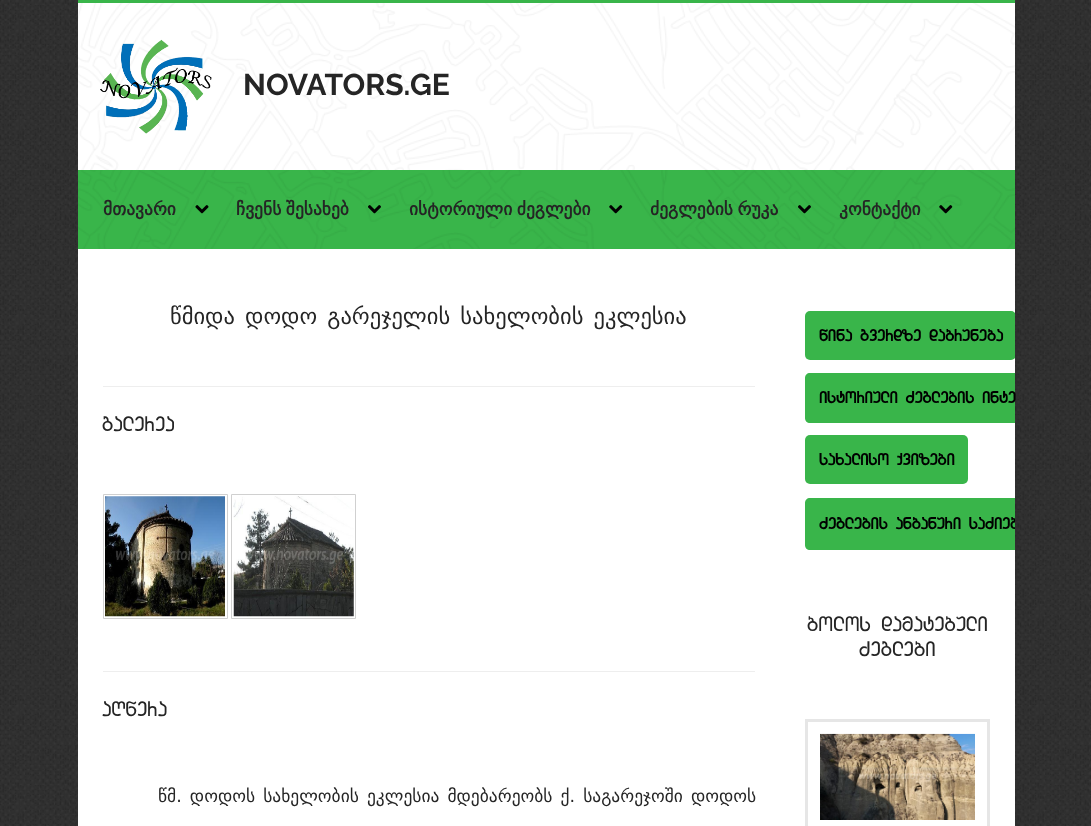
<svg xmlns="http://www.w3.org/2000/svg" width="1091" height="826">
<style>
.a{font:bold 30px Raleway;fill:#252525}
.b{font:bold 17.5px DejaVu Sans;fill:#252525}
.c{font:22.5px DejaVu Sans;fill:#252525}
.d{font:22.5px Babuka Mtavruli;fill:#252525}
.e{font:17.5px DejaVu Sans;fill:#252525}
.f{font:bold 17.5px Babuka Mtavruli;fill:#000}
</style>
<defs>
<clipPath id="clip1"><path d="M78 0h937v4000H78z"/></clipPath>
</defs>
<rect width="100%" height="100%" fill="#fff"/>
<image href="1.png" x="0" y="0" width="1091" height="826"/>
<path fill="#fff" d="M78 3h937v823H78z"/>
<image href="2.png" x="78" y="3" width="937" height="167"/>
<path fill="#39b54a" d="M78 0h937v3H78z"/>
<image href="3.png" x="100" y="39" width="112" height="95"/>
<path fill="#39b54a" d="M78 170h937v79H78z"/>
<image href="4.png" x="78" y="170" width="937" height="79"/>
<image href="5.png" x="195" y="205" width="14" height="9"/>
<image href="6.png" x="368" y="205" width="13" height="9"/>
<image href="7.png" x="609" y="205" width="14" height="9"/>
<image href="8.png" x="798" y="205" width="13" height="9"/>
<image href="9.png" x="939" y="205" width="14" height="9"/>
<path fill="#eee" d="M103 386h652v1H103z"/>
<path fill="none" stroke="#d0d0d0" d="M103.5 494.5h124v124H103.5z"/>
<path fill="none" stroke="#d0d0d0" d="M231.5 494.5h124v124H231.5z"/>
<image href="10.png" x="105" y="496" width="120" height="121"/>
<image href="11.png" x="233" y="496" width="121" height="121"/>
<path fill="#eee" d="M103 671h652v1H103z"/>
<g clip-path="url(#clip1)">
<rect fill="#39b54a" x="805" y="311" width="211" height="49" rx="5"/>
</g>
<path fill="#39b54a" d="M810 373h205v50h-205c-3 0-5-2-5-5v-40c0-3 2-5 5-5z"/>
<rect fill="#39b54a" x="805" y="435" width="163" height="49" rx="5"/>
<path fill="#39b54a" d="M810 498h205v52h-205c-3 0-5-2-5-5v-42c0-3 2-5 5-5z"/>
<path fill="none" stroke="#e6e6e6" stroke-width="3" d="M806.5 720.5h182v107H806.5z"/>
<image href="12.png" x="820" y="733" width="155" height="87"/>
<text class="a" x="243" y="95">NOVATORS.GE</text>
<text class="b" x="103" y="215">მთავარი</text>
<text class="b" x="236" y="215" word-spacing="-1">ჩვენს შესახებ</text>
<text class="b" x="409" y="215" word-spacing="-1">ისტორიული ძეგლები</text>
<text class="b" x="650" y="215" word-spacing="-1">ძეგლების რუკა</text>
<text class="b" x="839" y="215">კონტაქტი</text>
<text class="c" x="170" y="324" word-spacing="3">წმიდა დოდო გარეჯელის სახელობის ეკლესია</text>
<text class="d" x="102" y="431">galerea</text>
<text class="d" x="102" y="716">aRwera</text>
<text class="e" x="158" y="802" word-spacing="2.5">წმ. დოდოს სახელობის ეკლესია მდებარეობს ქ. საგარეჯოში დოდოს</text>
<text class="f" x="819" y="341">wina gverdze dabruneba</text>
<text class="f" x="819" y="403">istoriuli Zeglebis inte</text>
<text class="f" x="819" y="465">saxaliso qvizebi</text>
<g clip-path="url(#clip1)">
<text class="f" x="819" y="529">Zeglebis anbanuri saZieb</text>
</g>
<text class="d" x="807" y="631">bolos damatebuli</text>
<text class="d" x="859" y="656">Zeglebi</text>
</svg>
